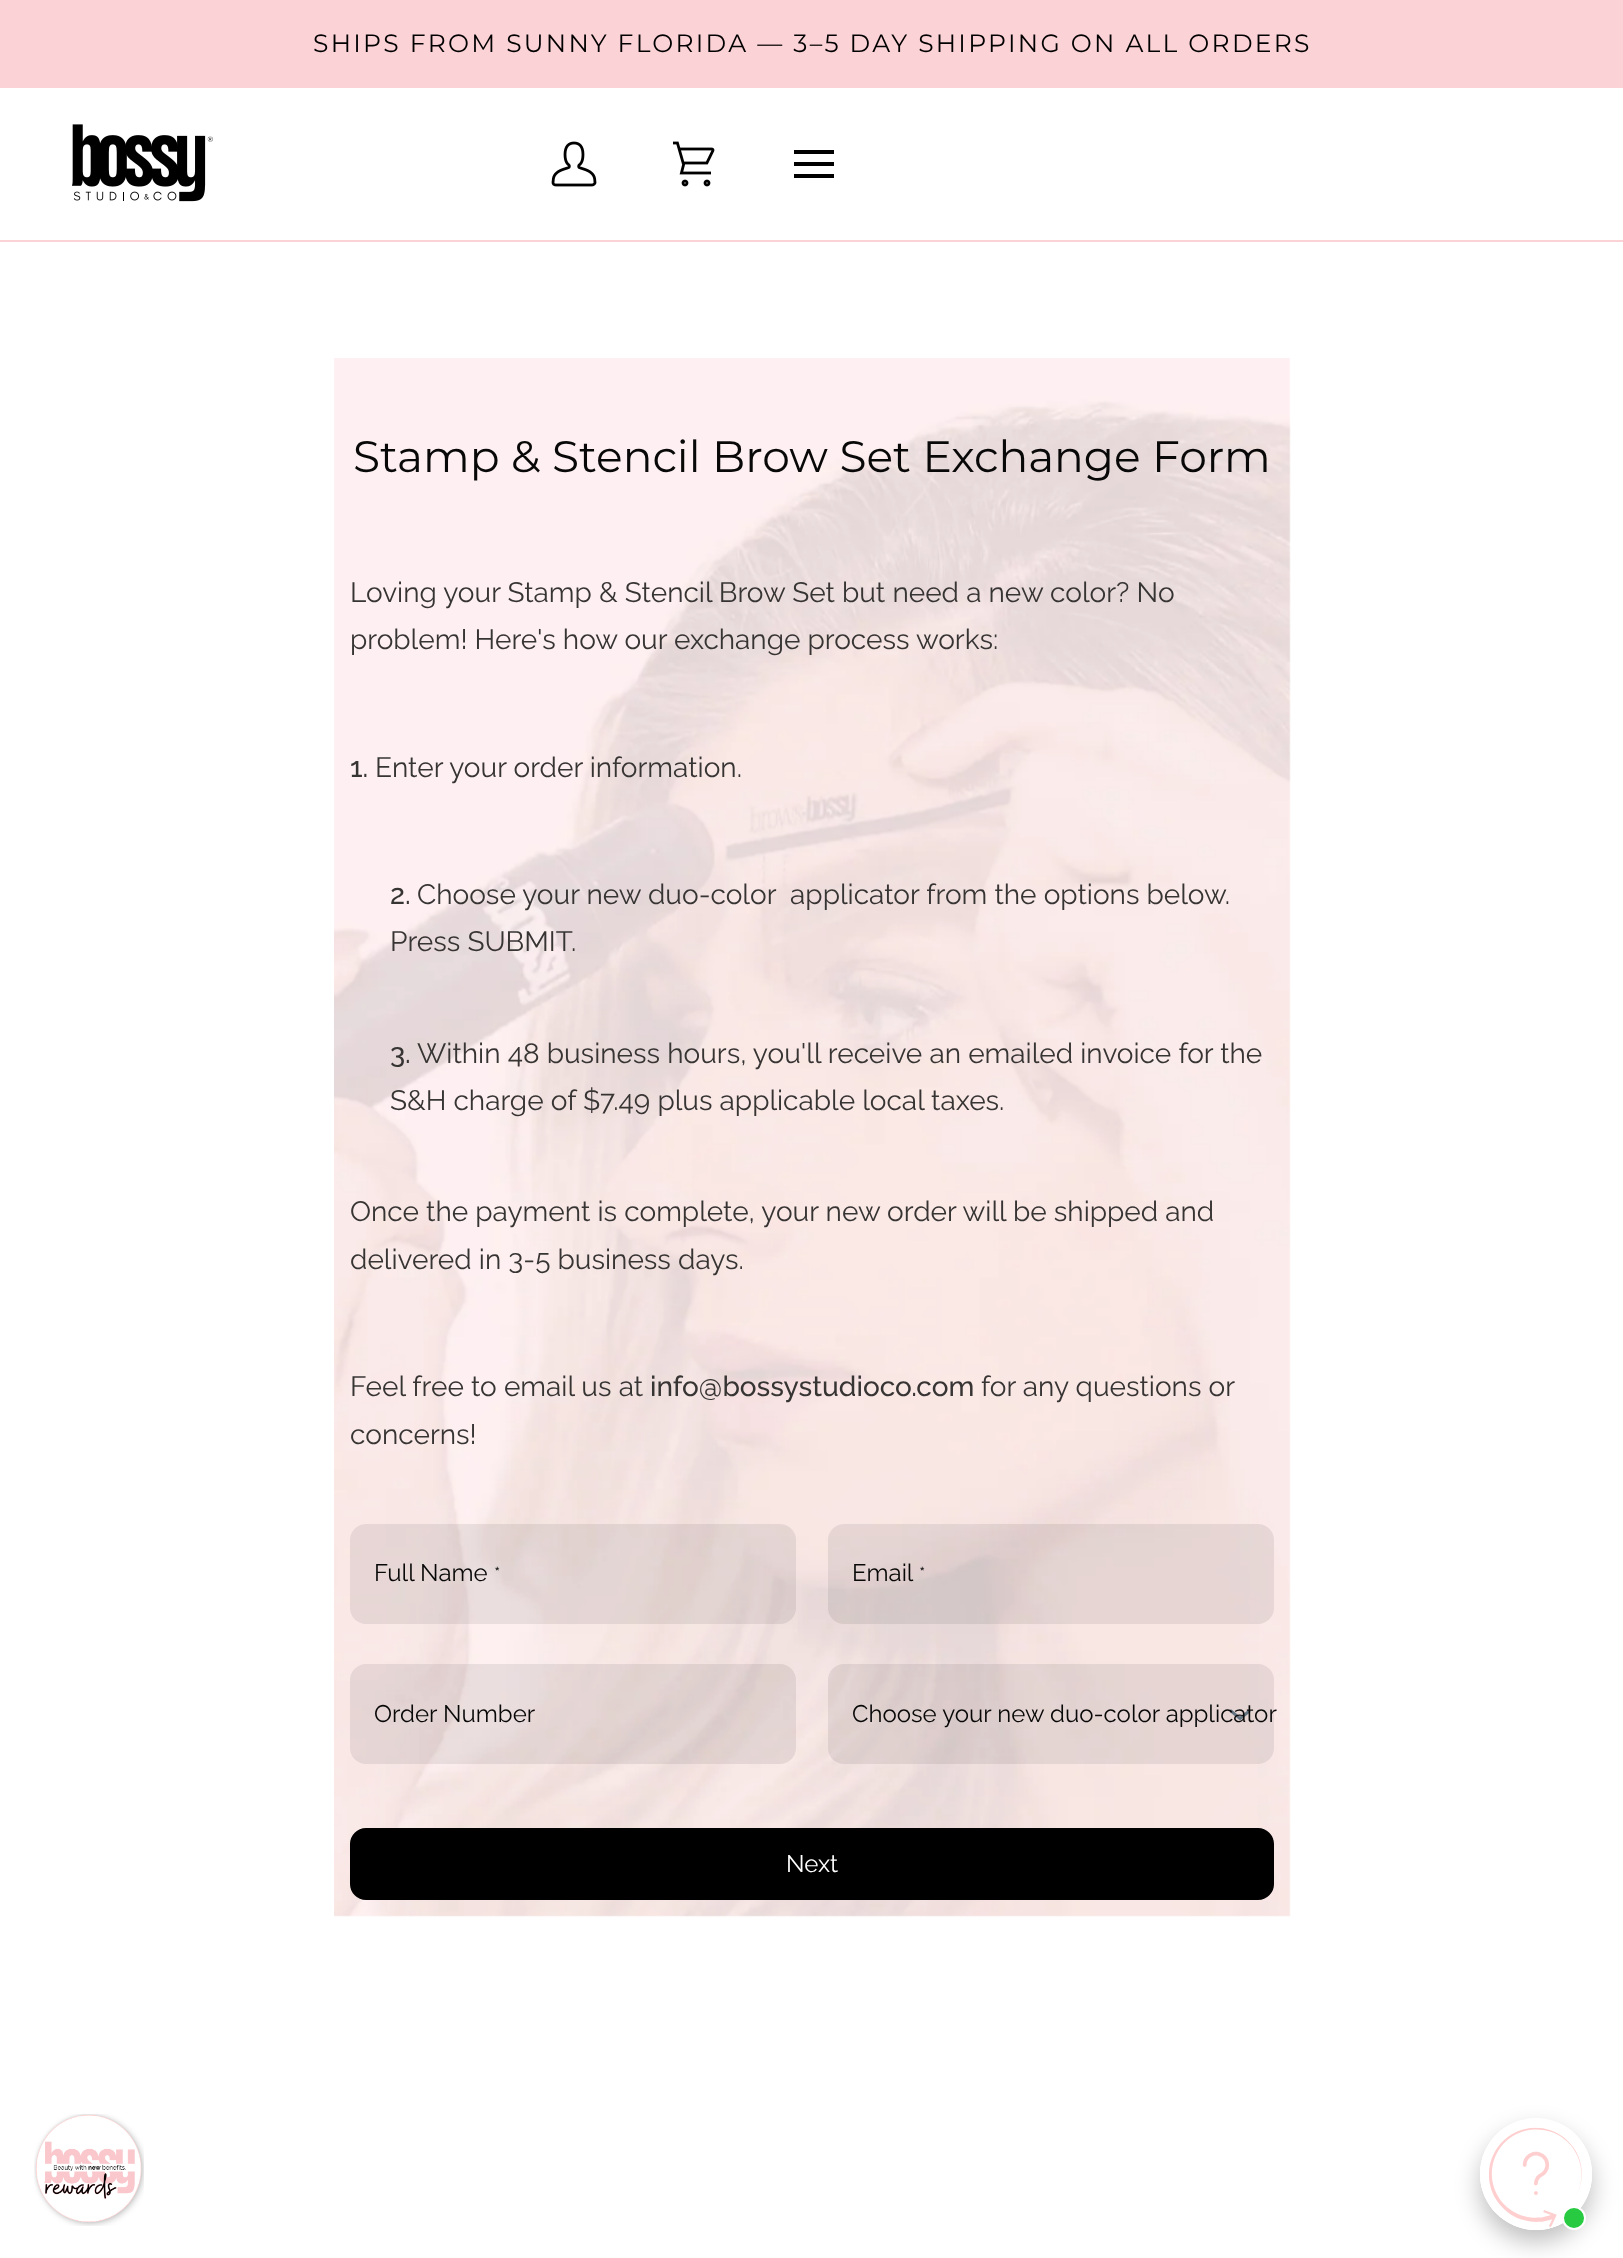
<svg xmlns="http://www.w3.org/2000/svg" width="1623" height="2258">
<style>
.a{font:100 25px Montserrat;letter-spacing:2.25px;fill:#000}
.b{font:100 44px Montserrat;fill:#080808}
.c{font:100 28px Raleway;fill:#373434}
.d{font:500 28px Raleway;fill:#373434}
.e{font:100 24px Raleway;fill:#080808}
.f{font:100 20px Raleway;fill:#080808}
.g{font:100 24px Raleway;fill:#fff}
</style>
<rect width="100%" height="100%" fill="#fff"/>
<path fill="#fbd2d6" d="M0 0h1623v88H0z"/>
<path fill="#fbd2d6" d="M0 240h1623v2H0z"/>
<image href="1.png" x="72" y="124" width="141" height="78"/>
<image href="2.png" x="551" y="141" width="46" height="46"/>
<image href="3.png" x="673" y="141" width="42" height="46"/>
<path fill="none" stroke="#000" stroke-width="4" stroke-linecap="square" d="M832 152h-36m36 12h-36m36 12h-36"/>
<image href="4.png" x="334" y="358" width="957" height="1559"/>
<rect fill="#08080814" x="350" y="1524" width="446" height="100" rx="16"/>
<rect fill="#08080814" x="828" y="1524" width="446" height="100" rx="16"/>
<rect fill="#08080814" x="350" y="1664" width="446" height="100" rx="16"/>
<rect fill="#08080814" x="828" y="1664" width="446" height="100" rx="16"/>
<image href="5.png" x="1229" y="1709" width="22" height="11"/>
<rect fill="#000" stroke="#000" stroke-width="2" x="351" y="1829" width="922" height="70" rx="15"/>
<image href="6.png" x="34" y="2114" width="110" height="112"/>
<rect fill="#00000040" filter="blur(12px)" x="1480" y="2130" width="112" height="112" rx="56"/>
<circle fill="#fff" cx="1536" cy="2174" r="56"/>
<image href="7.png" x="1480" y="2127" width="112" height="103"/>
<circle fill="#27ca40" stroke="#fff" stroke-width="2" cx="1574" cy="2218" r="11"/>
<text class="a" x="313" y="52">SHIPS FROM SUNNY FLORIDA — 3–5 DAY SHIPPING ON ALL ORDERS</text>
<text class="b" x="353" y="472">Stamp &amp; Stencil Brow Set Exchange Form</text>
<text class="c" x="350" y="602">Loving your Stamp &amp; Stencil Brow Set but need a new color? No</text>
<text class="c" x="350" y="649">problem! Here's how our exchange process works:</text>
<text class="d" x="350" y="777">1.</text>
<text class="c" x="375" y="777">Enter your order information.</text>
<text class="d" x="390" y="904">2.</text>
<text class="c" xml:space="preserve" x="417" y="904">Choose your new duo-color  applicator from the options below.</text>
<text class="c" x="390" y="951">Press SUBMIT.</text>
<text class="d" x="390" y="1063">3.</text>
<text class="c" x="417" y="1063">Within 48 business hours, you'll receive an emailed invoice for the</text>
<text class="c" x="390" y="1110">S&amp;H charge of $7.49 plus applicable local taxes.</text>
<text class="c" x="350" y="1221">Once the payment is complete, your new order will be shipped and</text>
<text class="c" x="350" y="1269">delivered in 3-5 business days.</text>
<text class="c" x="350" y="1396">Feel free to email us at</text>
<text class="d" x="650" y="1396">info@bossystudioco.com</text>
<text class="c" x="981" y="1396">for any questions or</text>
<text class="c" x="350" y="1444">concerns!</text>
<text class="e" x="374" y="1581">Full Name</text>
<text class="f" x="494" y="1581">*</text>
<text class="e" x="852" y="1581">Email</text>
<text class="f" x="919" y="1581">*</text>
<text class="e" x="374" y="1722">Order Number</text>
<text class="e" x="852" y="1722">Choose your new duo-color applicator</text>
<text class="g" x="786" y="1872">Next</text>
</svg>
